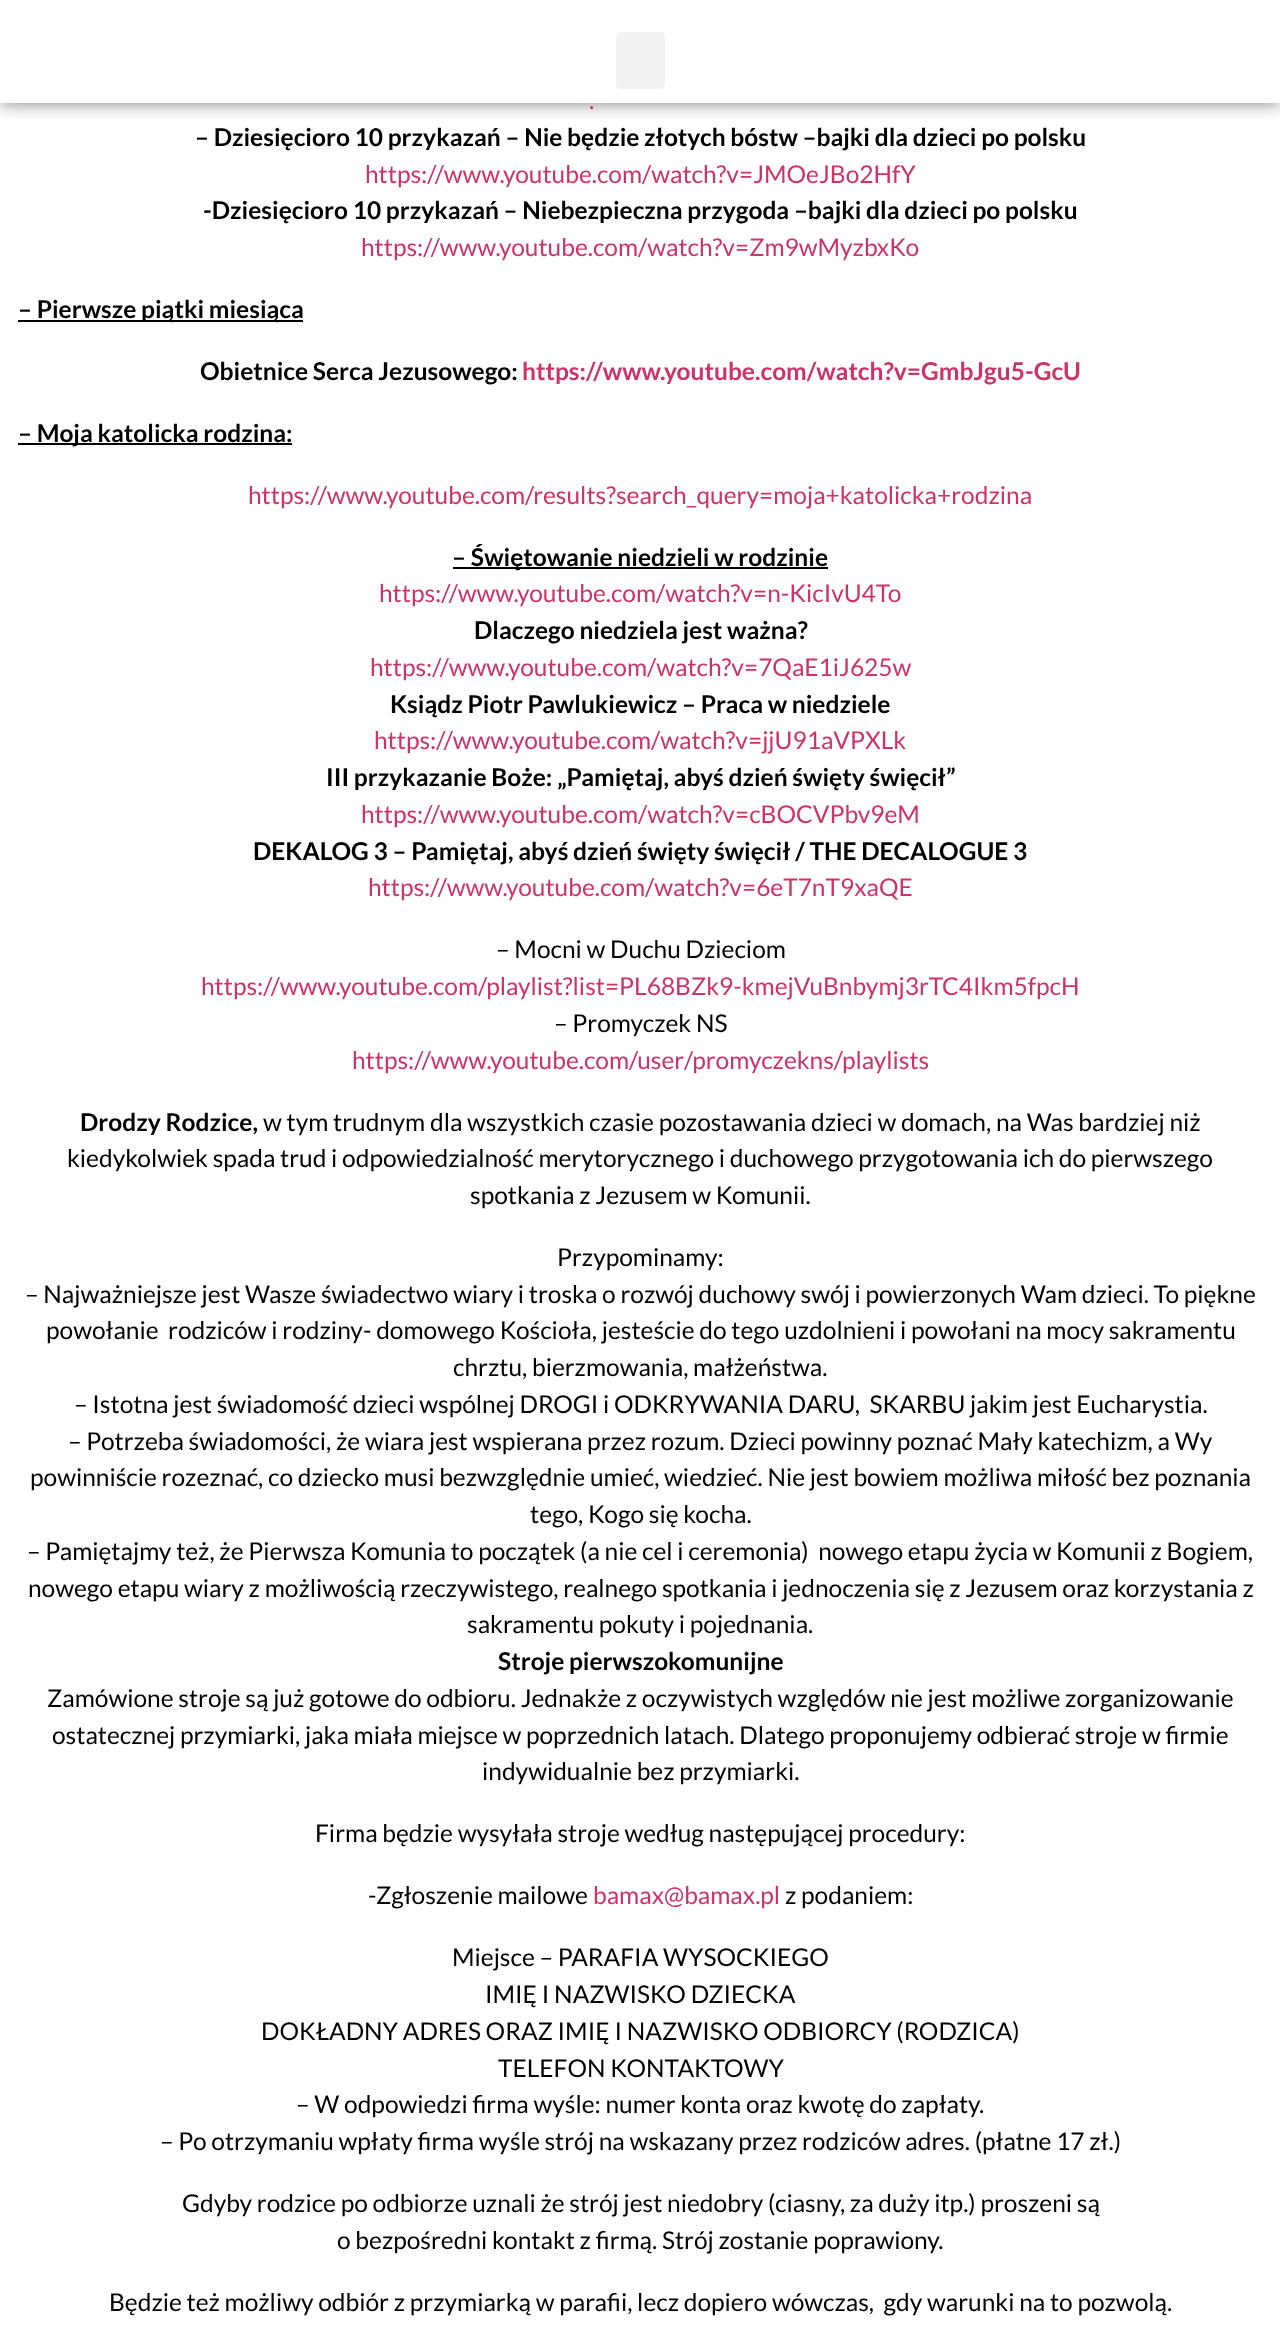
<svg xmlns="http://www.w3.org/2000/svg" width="1280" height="2349">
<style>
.a{font:24.5px Lato;fill:#c36}
.b{font:bold 24.5px Lato;fill:#000}
.c{font:bold 24.5px Lato;fill:#c36}
.d{font:24.5px Lato;fill:#000}
</style>
<rect width="100%" height="100%" fill="#fff"/>
<path fill="#00000080" filter="blur(9px)" d="M0 0h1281v103H0z"/>
<path fill="#fff" d="M0 0h1280v103H0z"/>
<rect fill="#f2f2f2" x="616" y="32" width="49" height="57" rx="5"/>
<path fill="#000" d="M18 320h285v2H18z"/>
<path fill="#000" d="M18 443h274v2H18z"/>
<path fill="#000" d="M453 567h375v2H453z"/>
<text class="a" x="589" y="109">.</text>
<text class="b" x="195" y="146">– Dziesięcioro 10 przykazań – Nie będzie złotych bóstw –bajki dla dzieci po polsku</text>
<text class="a" x="365" y="183">https://www.youtube.com/watch?v=JMOeJBo2HfY</text>
<text class="b" x="203" y="219">-Dziesięcioro 10 przykazań – Niebezpieczna przygoda –bajki dla dzieci po polsku</text>
<text class="a" x="361" y="256">https://www.youtube.com/watch?v=Zm9wMyzbxKo</text>
<text class="b" x="18" y="318">– Pierwsze piątki miesiąca</text>
<text class="b" x="200" y="380">Obietnice Serca Jezusowego:</text>
<text class="c" x="522" y="380">https://www.youtube.com/watch?v=GmbJgu5-GcU</text>
<text class="b" x="18" y="442">– Moja katolicka rodzina:</text>
<text class="a" x="248" y="504">https://www.youtube.com/results?search_query=moja+katolicka+rodzina</text>
<text class="b" x="452" y="566">– Świętowanie niedzieli w rodzinie</text>
<text class="a" x="379" y="602">https://www.youtube.com/watch?v=n-KicIvU4To</text>
<text class="b" x="474" y="639">Dlaczego niedziela jest ważna?</text>
<text class="a" x="370" y="676">https://www.youtube.com/watch?v=7QaE1iJ625w</text>
<text class="b" x="390" y="713">Ksiądz Piotr Pawlukiewicz – Praca w niedziele</text>
<text class="a" x="374" y="749">https://www.youtube.com/watch?v=jjU91aVPXLk</text>
<text class="b" x="326" y="786">III przykazanie Boże: „Pamiętaj, abyś dzień święty święcił”</text>
<text class="a" x="361" y="823">https://www.youtube.com/watch?v=cBOCVPbv9eM</text>
<text class="b" x="253" y="860">DEKALOG 3 – Pamiętaj, abyś dzień święty święcił / THE DECALOGUE 3</text>
<text class="a" x="368" y="896">https://www.youtube.com/watch?v=6eT7nT9xaQE</text>
<text class="d" x="496" y="958">– Mocni w Duchu Dzieciom</text>
<text class="a" x="201" y="995">https://www.youtube.com/playlist?list=PL68BZk9-kmejVuBnbymj3rTC4Ikm5fpcH</text>
<text class="d" x="554" y="1032">– Promyczek NS</text>
<text class="a" x="352" y="1069">https://www.youtube.com/user/promyczekns/playlists</text>
<text class="b" x="80" y="1131">Drodzy Rodzice,</text>
<text class="d" x="263" y="1131">w tym trudnym dla wszystkich czasie pozostawania dzieci w domach, na Was bardziej niż</text>
<text class="d" x="67" y="1167">kiedykolwiek spada trud i odpowiedzialność merytorycznego i duchowego przygotowania ich do pierwszego</text>
<text class="d" x="470" y="1204">spotkania z Jezusem w Komunii.</text>
<text class="d" x="557" y="1266">Przypominamy:</text>
<text class="d" x="25" y="1303">– Najważniejsze jest Wasze świadectwo wiary i troska o rozwój duchowy swój i powierzonych Wam dzieci. To piękne</text>
<text class="d" xml:space="preserve" x="46" y="1339">powołanie  rodziców i rodziny- domowego Kościoła, jesteście do tego uzdolnieni i powołani na mocy sakramentu</text>
<text class="d" x="453" y="1376">chrztu, bierzmowania, małżeństwa.</text>
<text class="d" xml:space="preserve" x="74" y="1413">– Istotna jest świadomość dzieci wspólnej DROGI i ODKRYWANIA DARU,  SKARBU jakim jest Eucharystia.</text>
<text class="d" x="68" y="1450">– Potrzeba świadomości, że wiara jest wspierana przez rozum. Dzieci powinny poznać Mały katechizm, a Wy</text>
<text class="d" x="30" y="1486">powinniście rozeznać, co dziecko musi bezwzględnie umieć, wiedzieć. Nie jest bowiem możliwa miłość bez poznania</text>
<text class="d" x="530" y="1523">tego, Kogo się kocha.</text>
<text class="d" xml:space="preserve" x="27" y="1560">– Pamiętajmy też, że Pierwsza Komunia to początek (a nie cel i ceremonia)  nowego etapu życia w Komunii z Bogiem,</text>
<text class="d" x="28" y="1597">nowego etapu wiary z możliwością rzeczywistego, realnego spotkania i jednoczenia się z Jezusem oraz korzystania z</text>
<text class="d" x="467" y="1633">sakramentu pokuty i pojednania.</text>
<text class="b" x="498" y="1670">Stroje pierwszokomunijne</text>
<text class="d" x="47" y="1707">Zamówione stroje są już gotowe do odbioru. Jednakże z oczywistych względów nie jest możliwe zorganizowanie</text>
<text class="d" x="52" y="1744">ostatecznej przymiarki, jaka miała miejsce w poprzednich latach. Dlatego proponujemy odbierać stroje w firmie</text>
<text class="d" x="482" y="1780">indywidualnie bez przymiarki.</text>
<text class="d" x="315" y="1842">Firma będzie wysyłała stroje według następującej procedury:</text>
<text class="d" x="368" y="1904">-Zgłoszenie mailowe</text>
<text class="a" x="593" y="1904">bamax@bamax.pl</text>
<text class="d" x="785" y="1904">z podaniem:</text>
<text class="d" x="452" y="1966">Miejsce – PARAFIA WYSOCKIEGO</text>
<text class="d" x="485" y="2003">IMIĘ I NAZWISKO DZIECKA</text>
<text class="d" x="261" y="2040">DOKŁADNY ADRES ORAZ IMIĘ I NAZWISKO ODBIORCY (RODZICA)</text>
<text class="d" x="498" y="2077">TELEFON KONTAKTOWY</text>
<text class="d" x="296" y="2113">– W odpowiedzi firma wyśle: numer konta oraz kwotę do zapłaty.</text>
<text class="d" x="160" y="2150">– Po otrzymaniu wpłaty firma wyśle strój na wskazany przez rodziców adres. (płatne 17 zł.)</text>
<text class="d" x="182" y="2212">Gdyby rodzice po odbiorze uznali że strój jest niedobry (ciasny, za duży itp.) proszeni są</text>
<text class="d" x="337" y="2249">o bezpośredni kontakt z firmą. Strój zostanie poprawiony.</text>
<text class="d" xml:space="preserve" x="109" y="2311">Będzie też możliwy odbiór z przymiarką w parafii, lecz dopiero wówczas,  gdy warunki na to pozwolą.</text>
</svg>
